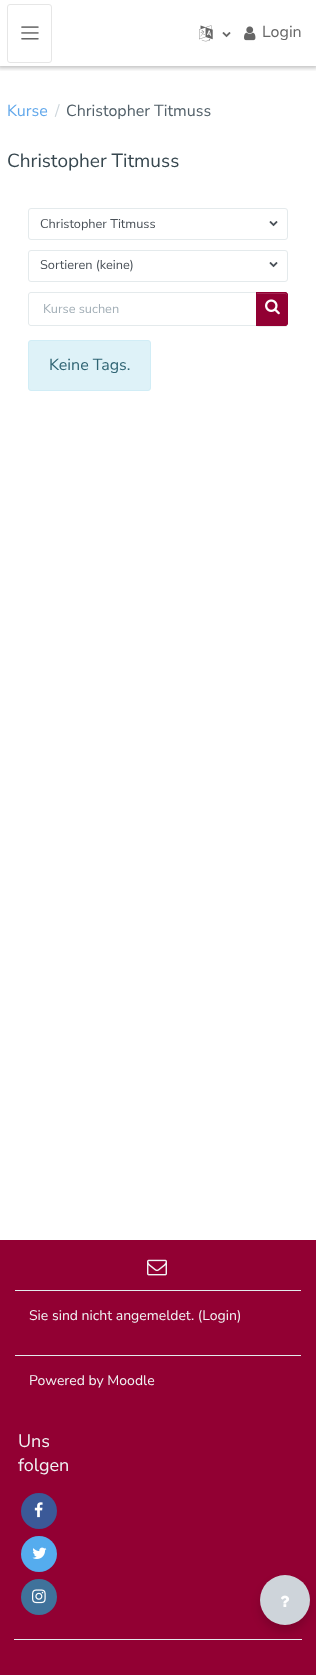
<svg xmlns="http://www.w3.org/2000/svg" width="316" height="1675">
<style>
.a{font:16px Nunito Sans;fill:#666}
.b{font:16px Nunito Sans;fill:#62a8eb}
.c{font:16px Nunito Sans;fill:#ccd5db}
.d{font:16px Nunito Sans;fill:#526069}
.e{font:19px Nunito Sans;fill:#37474f}
.f{font:12.75px Nunito Sans;fill:#495057}
.g{font:12.75px Nunito Sans;fill:#a3afb7}
.h{font:16px Nunito Sans;fill:#2f6473}
.i{font:14px Nunito Sans;fill:#f1f4f5}
.j{font:18px Nunito Sans;fill:#f1f4f5}
</style>
<defs>
<clipPath id="clip1"><path d="M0 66h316v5H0z"/></clipPath>
</defs>
<rect width="100%" height="100%" fill="#fff"/>
<g clip-path="url(#clip1)">
<path fill="#00000040" filter="blur(2px)" d="M-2 -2h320v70H-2z"/>
</g>
<rect fill="none" stroke="#e6e6e6" x="7.5" y="4.5" width="44" height="58" rx="2.5"/>
<image href="1.png" x="21" y="26" width="18" height="14"/>
<image href="2.png" x="199" y="25" width="14" height="17"/>
<image href="3.png" x="222" y="32" width="9" height="6"/>
<image href="4.png" x="244" y="26" width="12" height="15"/>
<rect fill="none" stroke="#e4eaec" x="28.5" y="208.5" width="259" height="31" rx="2.5"/>
<image href="5.png" x="269" y="221" width="9" height="6"/>
<rect fill="none" stroke="#e4eaec" x="28.5" y="250.5" width="259" height="31" rx="2.5"/>
<image href="5.png" x="269" y="262" width="9" height="6"/>
<path fill="none" stroke="#e4eaec" d="M31 292.5h225.5v33h-225.5c-1.5 0-2.5-1-2.5-2.5v-28c0-1.5 1-2.5 2.5-2.5z"/>
<rect fill="#00000012" filter="blur(0.5px)" x="256" y="293" width="32" height="34" rx="3"/>
<path fill="#920033" d="M256 292h29c1.5 0 3 1.5 3 3v28c0 1.5-1.5 3-3 3h-29z"/>
<path fill="#a22652" d="M257 294h28c1 0 2 1 2 2v-1c0-1-1-2-2-2h-28z"/>
<path fill="none" stroke="#920033" d="M256.5 292.5h28.5c1.5 0 2.5 1 2.5 2.5v28c0 1.5-1 2.5-2.5 2.5h-28.5z"/>
<image href="6.png" x="265" y="299" width="15" height="16"/>
<rect fill="#def2f8" stroke="#d1edf6" x="28.5" y="340.5" width="122" height="50" rx="2.5"/>
<path fill="#920033" d="M0 1240h316v435H0z"/>
<path fill="#e4eaec" d="M15 1290h286v1H15z"/>
<image href="7.png" x="147" y="1259" width="20" height="17"/>
<path fill="#e4eaec" d="M15 1355h286v1H15z"/>
<circle fill="#3b5998" cx="39" cy="1511" r="18"/>
<image href="8.png" x="34" y="1502" width="9" height="16"/>
<circle fill="#55acee" cx="39" cy="1554" r="18"/>
<image href="9.png" x="32" y="1547" width="15" height="12"/>
<circle fill="#3f729b" cx="39" cy="1597" r="18"/>
<image href="10.png" x="32" y="1589" width="14" height="15"/>
<path fill="#e4eaec" d="M14 1639h288v1H14z"/>
<rect fill="#00000026" filter="blur(5px)" x="260" y="1581" width="50" height="50" rx="25"/>
<circle fill="#ced4da" cx="285" cy="1600" r="25"/>
<image href="11.png" x="281" y="1595" width="8" height="12"/>
<text class="a" x="262" y="37">Login</text>
<text class="b" x="7" y="116">Kurse</text>
<text class="c" x="55" y="116">/</text>
<text class="d" x="66" y="116">Christopher Titmuss</text>
<text class="e" x="7" y="167">Christopher Titmuss</text>
<text class="f" x="40" y="228">Christopher Titmuss</text>
<text class="f" x="40" y="269">Sortieren (keine)</text>
<text class="g" x="43" y="313">Kurse suchen</text>
<text class="h" x="49" y="370">Keine Tags.</text>
<text class="i" x="29" y="1320">Sie sind nicht angemeldet. (Login)</text>
<text class="i" x="29" y="1385">Powered by Moodle</text>
<text class="j" x="18" y="1447">Uns</text>
<text class="j" x="18" y="1471">folgen</text>
</svg>
